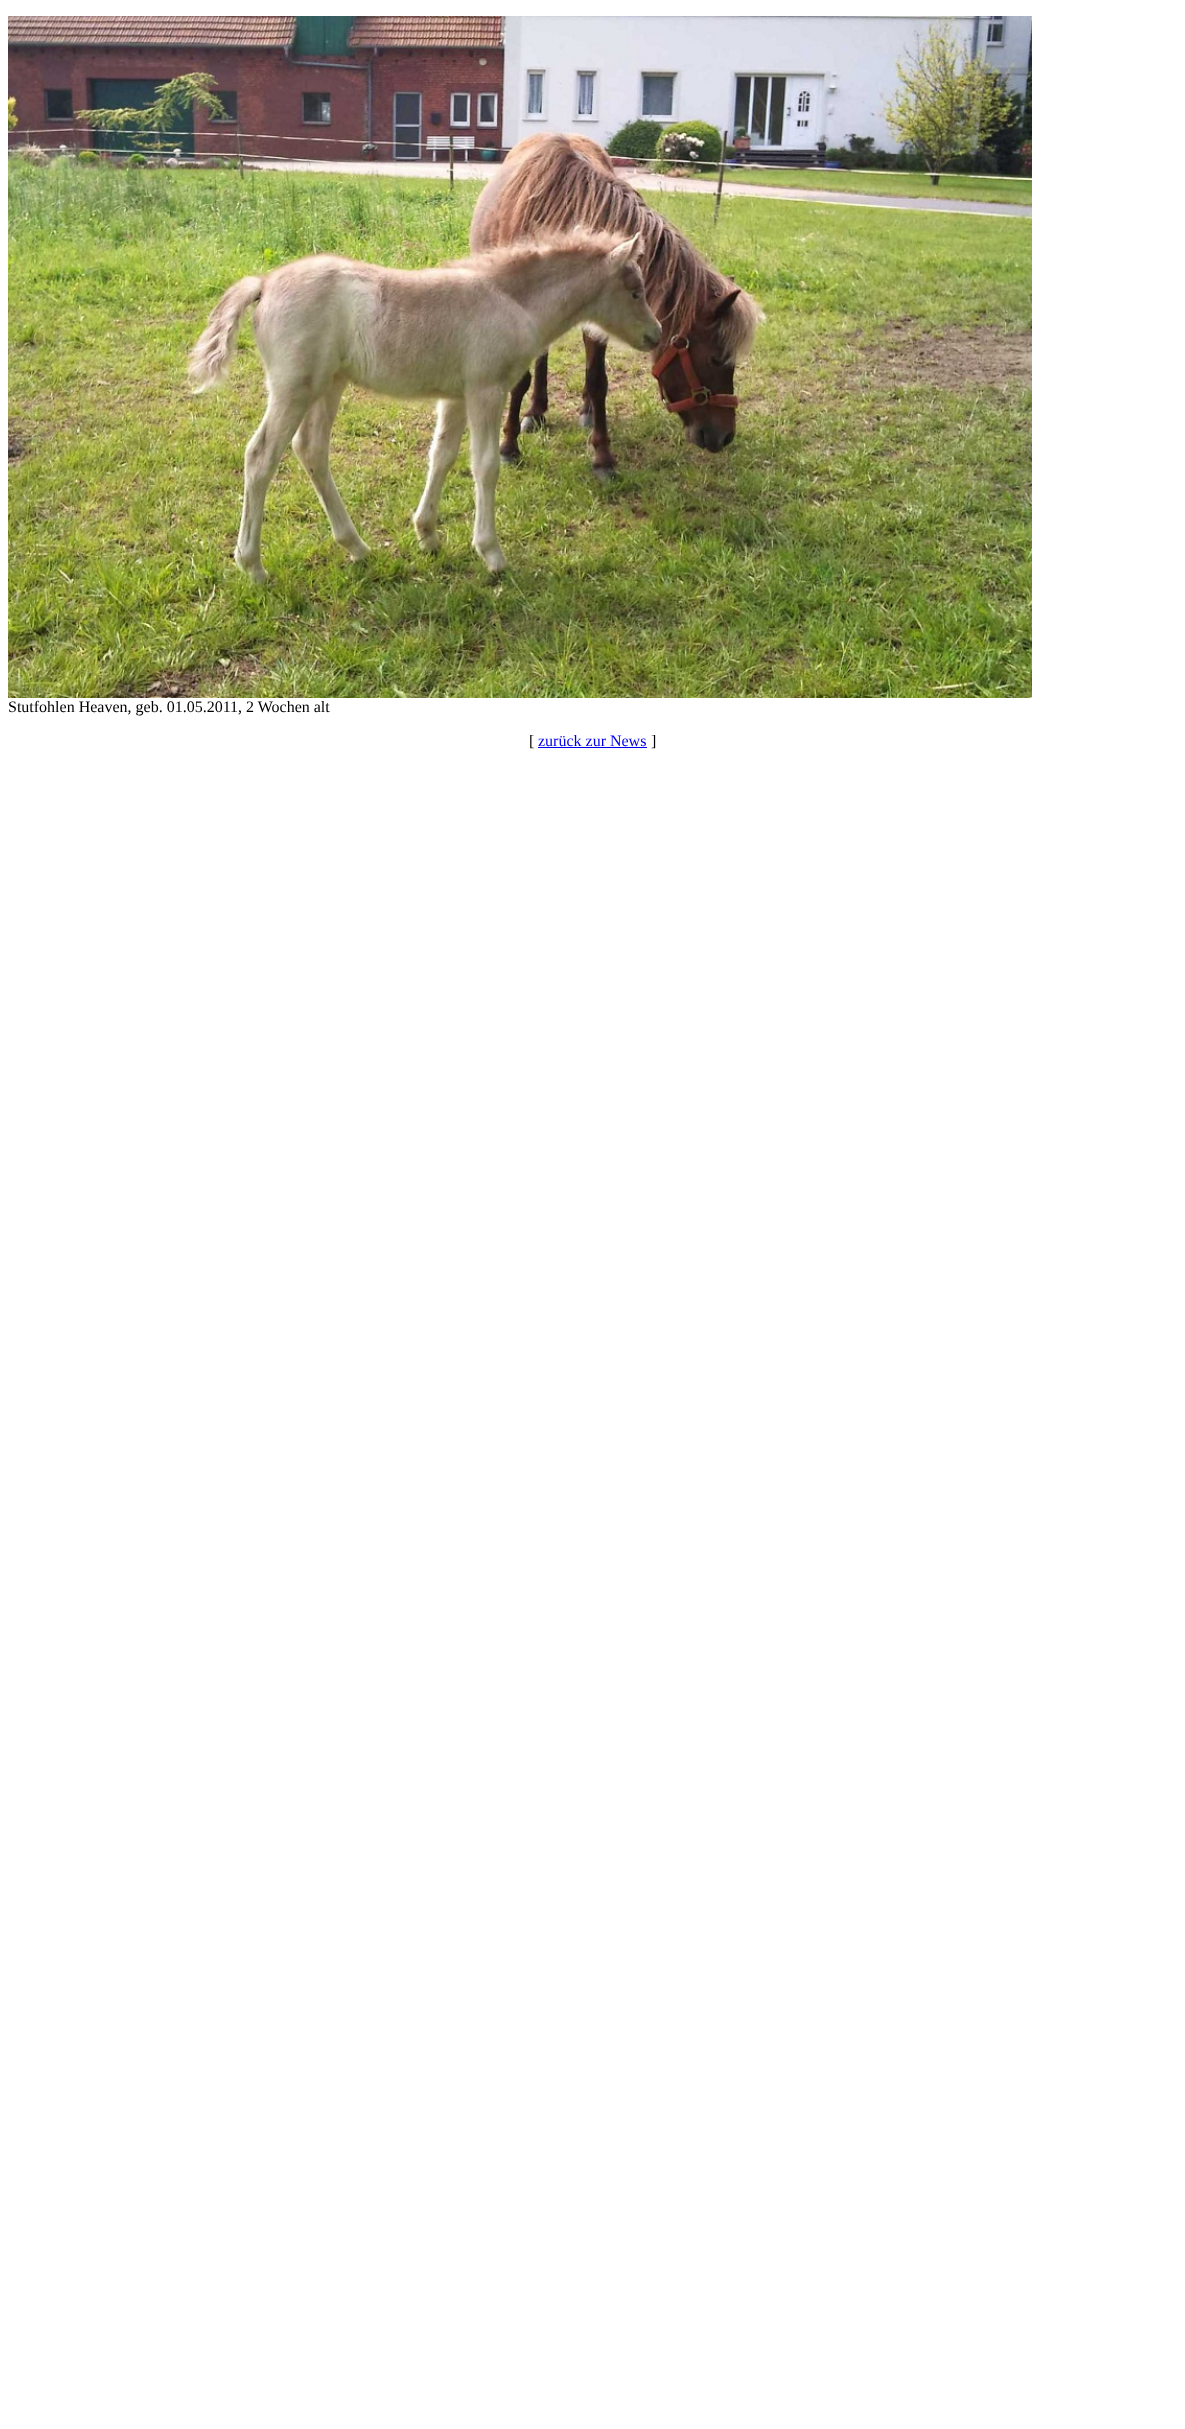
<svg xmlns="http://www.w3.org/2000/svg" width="1185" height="2429">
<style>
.a{font:16px Liberation Serif;fill:#000}
.b{font:16px Liberation Serif;fill:#00e}
</style>
<rect width="100%" height="100%" fill="#fff"/>
<image href="1.png" x="8" y="16" width="1024" height="682"/>
<path fill="#00e" d="M538 747h109v1H538z"/>
<text class="a" x="8" y="712">Stutfohlen Heaven, geb. 01.05.2011, 2 Wochen alt</text>
<text class="a" x="529" y="746">[</text>
<text class="b" x="538" y="746">zurück zur News</text>
<text class="a" x="651" y="746">]</text>
</svg>
